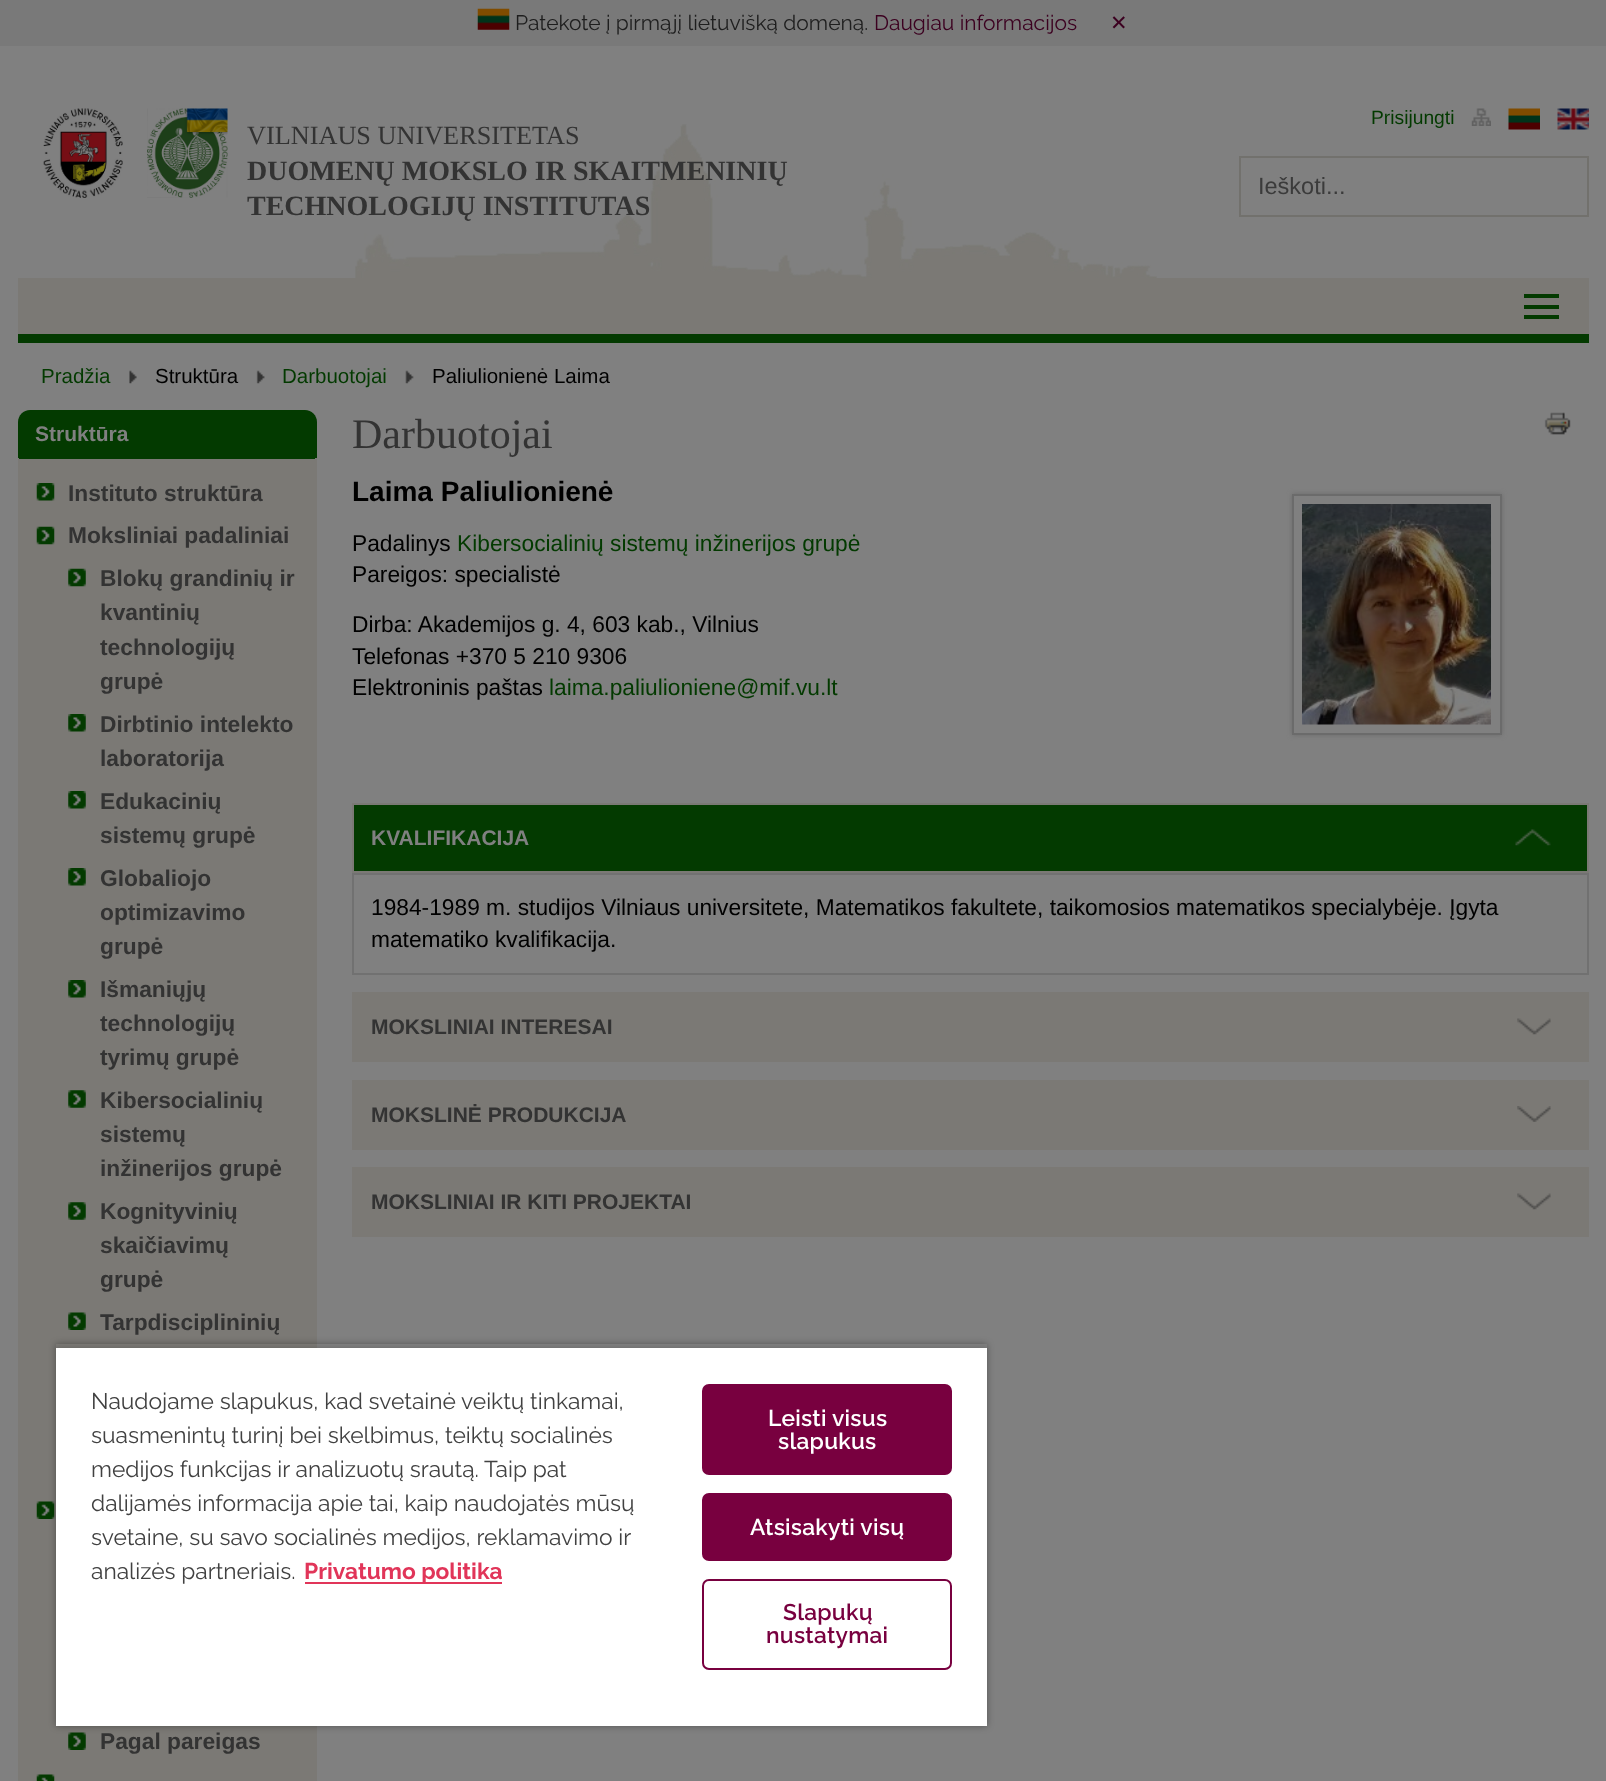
<svg xmlns="http://www.w3.org/2000/svg" width="1606" height="1781">
<style>
.a{font:21px Raleway;fill:#1e1e1e}
.b{font:21px Raleway;fill:#3c0020}
.c{font:21px DejaVu Sans;fill:#3c0020}
.d{font:26.25px Liberation Serif;fill:#333}
.e{font:bold 28px Liberation Serif;fill:#333}
.f{font:19.25px Liberation Sans;fill:#033a00}
.g{font:23.5px Liberation Sans;fill:#3b3b3b}
.h{font:20.5px Liberation Sans;fill:#033a00}
.i{font:20.5px Liberation Sans;fill:#000}
.j{font:bold 21px Liberation Sans;fill:#808080}
.k{font:bold 22.75px Liberation Sans;fill:#333}
.l{font:42px Liberation Serif;fill:#333}
.m{font:bold 28px Liberation Sans;fill:#000}
.n{font:22.75px Liberation Sans;fill:#000}
.o{font:22.75px Liberation Sans;fill:#033a00}
.p{font:bold 21px Liberation Sans;fill:#333}
.q{font:22.75px Raleway;fill:#414141}
.r{font:bold 22.75px Raleway;fill:#e13559}
.s{font:600 22.75px Raleway;letter-spacing:0.25px;fill:#fff}
.t{font:600 22.75px Raleway;letter-spacing:0.25px;fill:#78003f}
</style>
<defs>
<clipPath id="clip1"><path d="M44 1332h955v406h-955zm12 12h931v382h-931z" clip-rule="evenodd"/></clipPath>
<clipPath id="clip2"><path d="M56 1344h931v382H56z"/></clipPath>
</defs>
<rect width="100%" height="100%" fill="#808080"/>
<path fill="#797979" d="M0 0h1606v46H0z"/>
<image href="1.png" x="477" y="8" width="33" height="22"/>
<image href="2.png" x="355" y="124" width="802" height="154"/>
<image href="3.png" x="43" y="108" width="80" height="90"/>
<image href="4.png" x="147" y="108" width="81" height="90"/>
<image href="5.png" x="1471" y="108" width="20" height="18"/>
<image href="6.png" x="1508" y="108" width="32" height="22"/>
<image href="7.png" x="1557" y="108" width="32" height="22"/>
<path fill="none" stroke="#72716d" stroke-width="2" d="M1240 157h348v59H1240z"/>
<path fill="#7b7975" d="M18 278h1571v56H18z"/>
<path fill="#033a00" d="M18 334h1571v9H18z"/>
<path fill="#033a00" d="M1524 294h35v4H1524z"/>
<path fill="#033a00" d="M1524 305h35v4H1524z"/>
<path fill="#033a00" d="M1524 315h35v4H1524z"/>
<image href="8.png" x="129" y="370" width="8" height="14"/>
<image href="9.png" x="256" y="370" width="9" height="14"/>
<image href="10.png" x="405" y="370" width="9" height="14"/>
<path fill="#033a00" d="M30 410h275c6.5 0 12 5.5 12 12v37h-299v-37c0-6.5 5.5-12 12-12z"/>
<path fill="#7b7975" d="M19 459h296v1322H19z"/>
<path fill="#7b7975" fill-rule="evenodd" d="M18 458h299v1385c0 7-6 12-13 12h-274c-7 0-12-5-12-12zm1 0h296v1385c0 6-5 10-11 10h-274c-6 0-11-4-11-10z"/>
<image href="11.png" x="36" y="483" width="19" height="18"/>
<image href="12.png" x="36" y="526" width="19" height="19"/>
<image href="13.png" x="68" y="568" width="18" height="19"/>
<image href="14.png" x="68" y="714" width="18" height="18"/>
<image href="14.png" x="68" y="791" width="18" height="18"/>
<image href="14.png" x="68" y="868" width="18" height="18"/>
<image href="14.png" x="68" y="980" width="18" height="18"/>
<image href="15.png" x="68" y="1090" width="18" height="18"/>
<image href="15.png" x="68" y="1202" width="18" height="18"/>
<image href="16.png" x="68" y="1312" width="18" height="18"/>
<image href="17.png" x="36" y="1501" width="19" height="18"/>
<image href="16.png" x="68" y="1732" width="18" height="18"/>
<image href="18.png" x="36" y="1774" width="19" height="7"/>
<image href="19.png" x="1544" y="412" width="27" height="23"/>
<path fill="#6b6b6b" filter="blur(2.5px)" d="M1292 494h210v241H1292z"/>
<path fill="#808080" stroke="#6b6b6b" stroke-width="2" d="M1293 495h208v239H1293z"/>
<image href="20.png" x="1302" y="504" width="189" height="221"/>
<path fill="#033a00" d="M354 805h1233v66H354z"/>
<image href="21.png" x="1515" y="829" width="36" height="17"/>
<path fill="none" stroke="#7b7975" stroke-width="2" d="M353 804h1235v68H353z"/>
<path fill="none" stroke="#717171" stroke-width="2" d="M353 874h1235v100H353z"/>
<path fill="#7b7975" d="M352 992h1237v70H352z"/>
<image href="22.png" x="1517" y="1018" width="34" height="17"/>
<path fill="#7b7975" d="M352 1080h1237v70H352z"/>
<image href="23.png" x="1517" y="1106" width="34" height="16"/>
<path fill="#7b7975" d="M352 1167h1237v70H352z"/>
<image href="22.png" x="1517" y="1193" width="34" height="17"/>
<g clip-path="url(#clip1)">
<path fill="#00000059" filter="blur(3.5px)" d="M56 1344h931v382H56z"/>
</g>
<g clip-path="url(#clip2)">
<path fill="#00000033" filter="blur(3.5px)" d="M56 1348h931v378H56z"/>
</g>
<path fill="#fff" d="M56 1348h931v378H56z"/>
<path fill="#e13559" d="M305 1582h197v2H305z"/>
<rect fill="#78003f" stroke="#78003f" stroke-width="2" x="703" y="1385" width="248" height="89" rx="6"/>
<rect fill="#78003f" stroke="#78003f" stroke-width="2" x="703" y="1494" width="248" height="66" rx="6"/>
<rect fill="none" stroke="#78003f" stroke-width="2" x="703" y="1580" width="248" height="89" rx="6"/>
<text class="a" x="515" y="30">Patekote į pirmąjį lietuvišką domeną.</text>
<text class="b" x="874" y="30">Daugiau informacijos</text>
<text class="c" x="1110" y="30">✕</text>
<text class="d" x="247" y="144">VILNIAUS UNIVERSITETAS</text>
<text class="e" x="247" y="180">DUOMENŲ MOKSLO IR SKAITMENINIŲ</text>
<text class="e" x="247" y="215">TECHNOLOGIJŲ INSTITUTAS</text>
<text class="f" x="1371" y="124">Prisijungti</text>
<text class="g" x="1258" y="194">Ieškoti...</text>
<text class="h" x="41" y="383">Pradžia</text>
<text class="i" x="155" y="383">Struktūra</text>
<text class="h" x="282" y="383">Darbuotojai</text>
<text class="i" x="432" y="383">Paliulionienė Laima</text>
<text class="j" x="35" y="441">Struktūra</text>
<text class="k" x="68" y="501">Instituto struktūra</text>
<text class="k" x="68" y="543">Moksliniai padaliniai</text>
<text class="k" x="100" y="586">Blokų grandinių ir</text>
<text class="k" x="100" y="620">kvantinių</text>
<text class="k" x="100" y="655">technologijų</text>
<text class="k" x="100" y="689">grupė</text>
<text class="k" x="100" y="732">Dirbtinio intelekto</text>
<text class="k" x="100" y="766">laboratorija</text>
<text class="k" x="100" y="809">Edukacinių</text>
<text class="k" x="100" y="843">sistemų grupė</text>
<text class="k" x="100" y="886">Globaliojo</text>
<text class="k" x="100" y="920">optimizavimo</text>
<text class="k" x="100" y="954">grupė</text>
<text class="k" x="100" y="997">Išmaniųjų</text>
<text class="k" x="100" y="1031">technologijų</text>
<text class="k" x="100" y="1065">tyrimų grupė</text>
<text class="k" x="100" y="1108">Kibersocialinių</text>
<text class="k" x="100" y="1142">sistemų</text>
<text class="k" x="100" y="1176">inžinerijos grupė</text>
<text class="k" x="100" y="1219">Kognityvinių</text>
<text class="k" x="100" y="1253">skaičiavimų</text>
<text class="k" x="100" y="1287">grupė</text>
<text class="k" x="100" y="1330">Tarpdisciplininių</text>
<text class="k" x="100" y="1749">Pagal pareigas</text>
<text class="l" x="352" y="448">Darbuotojai</text>
<text class="m" x="352" y="501">Laima Paliulionienė</text>
<text class="n" x="352" y="551">Padalinys</text>
<text class="o" x="457" y="551">Kibersocialinių sistemų inžinerijos grupė</text>
<text class="n" x="352" y="582">Pareigos: specialistė</text>
<text class="n" x="352" y="632">Dirba: Akademijos g. 4, 603 kab., Vilnius</text>
<text class="n" x="352" y="664">Telefonas +370 5 210 9306</text>
<text class="n" x="352" y="695">Elektroninis paštas</text>
<text class="o" x="549" y="695">laima.paliulioniene@mif.vu.lt</text>
<text class="j" x="371" y="845">KVALIFIKACIJA</text>
<text class="n" x="371" y="915">1984-1989 m. studijos Vilniaus universitete, Matematikos fakultete, taikomosios matematikos specialybėje. Įgyta</text>
<text class="n" x="371" y="947">matematiko kvalifikacija.</text>
<text class="p" x="371" y="1034">MOKSLINIAI INTERESAI</text>
<text class="p" x="371" y="1122">MOKSLINĖ PRODUKCIJA</text>
<text class="p" x="371" y="1209">MOKSLINIAI IR KITI PROJEKTAI</text>
<text class="q" x="91" y="1409">Naudojame slapukus, kad svetainė veiktų tinkamai,</text>
<text class="q" x="91" y="1443">suasmenintų turinį bei skelbimus, teiktų socialinės</text>
<text class="q" x="91" y="1477">medijos funkcijas ir analizuotų srautą. Taip pat</text>
<text class="q" x="91" y="1511">dalijamės informacija apie tai, kaip naudojatės mūsų</text>
<text class="q" x="91" y="1545">svetaine, su savo socialinės medijos, reklamavimo ir</text>
<text class="q" x="91" y="1579">analizės partneriais.</text>
<text class="r" x="304" y="1579">Privatumo politika</text>
<text class="s" x="768" y="1426">Leisti visus</text>
<text class="s" x="778" y="1449">slapukus</text>
<text class="s" x="750" y="1535">Atsisakyti visų</text>
<text class="t" x="783" y="1620">Slapukų</text>
<text class="t" x="766" y="1643">nustatymai</text>
</svg>
